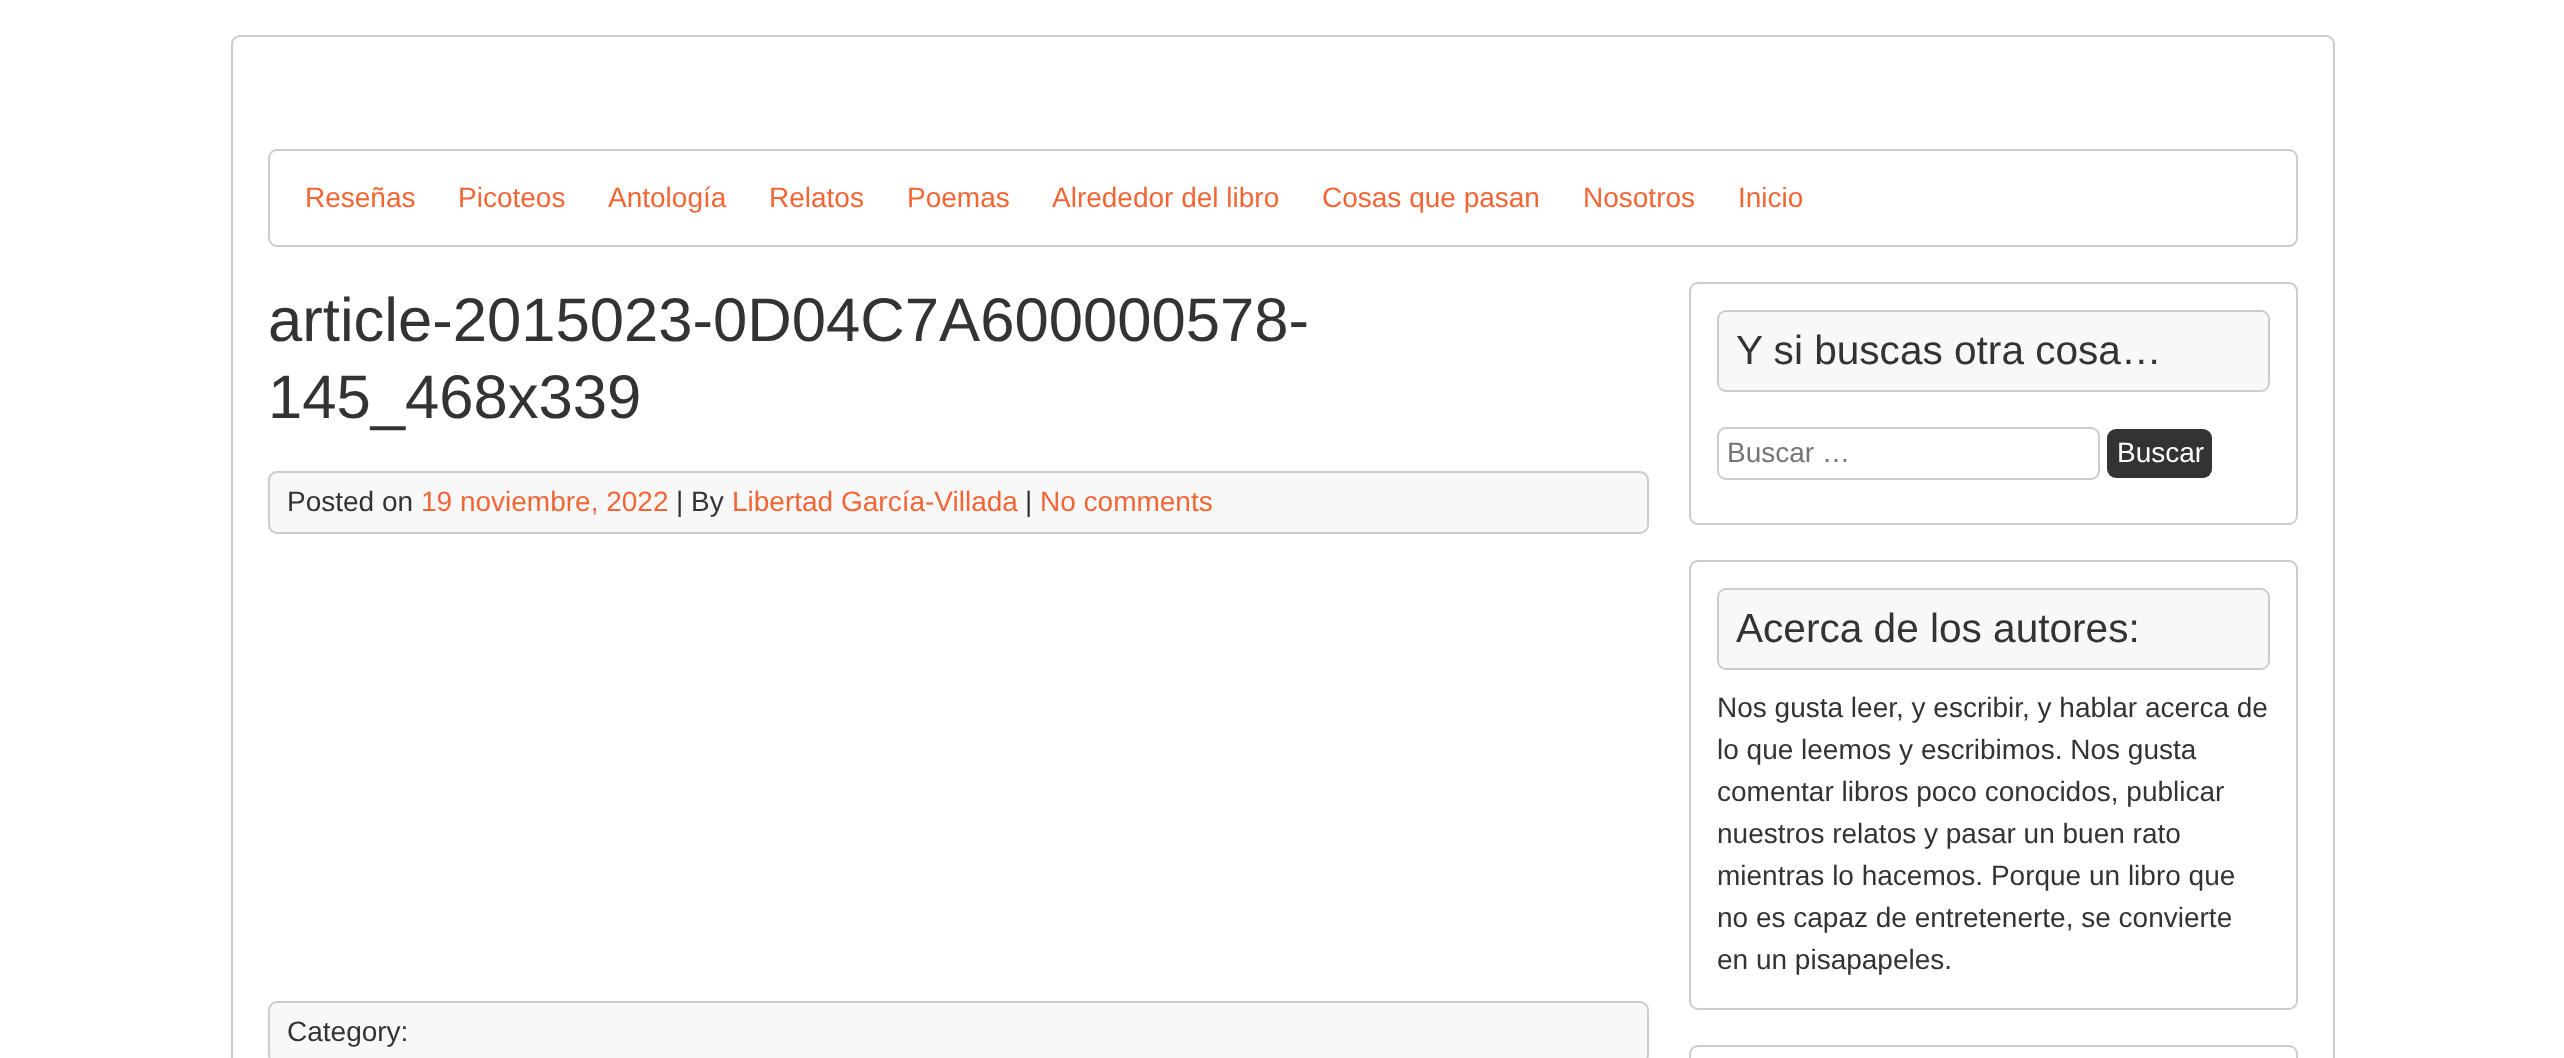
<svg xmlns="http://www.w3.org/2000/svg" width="2564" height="1058">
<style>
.a{font:28px Liberation Sans;fill:#f26535}
.b{font:61.6px Liberation Sans;fill:#333}
.c{font:28px Liberation Sans;fill:#333}
.d{font:40.6px Liberation Sans;fill:#333}
.e{font:28px Liberation Sans;fill:#757575}
.f{font:28px Liberation Sans;fill:#fff}
</style>
<rect width="100%" height="100%" fill="#fff"/>
<rect fill="none" stroke="#ccc" stroke-width="2" x="232" y="36" width="2102" height="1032" rx="8"/>
<rect fill="none" stroke="#ccc" stroke-width="2" x="269" y="150" width="2028" height="96" rx="8"/>
<rect fill="#f8f8f8" stroke="#ccc" stroke-width="2" x="269" y="472" width="1379" height="61" rx="8"/>
<rect fill="#f8f8f8" stroke="#ccc" stroke-width="2" x="269" y="1002" width="1379" height="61" rx="8"/>
<rect fill="none" stroke="#ccc" stroke-width="2" x="1690" y="283" width="607" height="241" rx="8"/>
<rect fill="#f8f8f8" stroke="#ccc" stroke-width="2" x="1718" y="311" width="551" height="80" rx="8"/>
<rect fill="none" stroke="#ccc" stroke-width="2" x="1718" y="428" width="381" height="51" rx="8"/>
<rect fill="#333" x="2107" y="429" width="105" height="49" rx="9"/>
<rect fill="none" stroke="#ccc" stroke-width="2" x="1690" y="561" width="607" height="448" rx="8"/>
<rect fill="#f8f8f8" stroke="#ccc" stroke-width="2" x="1718" y="589" width="551" height="80" rx="8"/>
<rect fill="none" stroke="#ccc" stroke-width="2" x="1690" y="1046" width="607" height="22" rx="8"/>
<text class="a" x="305" y="207">Reseñas</text>
<text class="a" x="458" y="207">Picoteos</text>
<text class="a" x="608" y="207">Antología</text>
<text class="a" x="769" y="207">Relatos</text>
<text class="a" x="907" y="207">Poemas</text>
<text class="a" x="1052" y="207">Alrededor del libro</text>
<text class="a" x="1322" y="207">Cosas que pasan</text>
<text class="a" x="1583" y="207">Nosotros</text>
<text class="a" x="1738" y="207">Inicio</text>
<text class="b" x="268" y="341">article-2015023-0D04C7A600000578-</text>
<text class="b" x="268" y="418">145_468x339</text>
<text class="c" x="287" y="511">Posted on</text>
<text class="a" x="421" y="511">19 noviembre, 2022</text>
<text class="c" x="676" y="511">| By</text>
<text class="a" x="732" y="511">Libertad García-Villada</text>
<text class="c" x="1025" y="511">|</text>
<text class="a" x="1040" y="511">No comments</text>
<text class="c" x="287" y="1041">Category:</text>
<text class="d" x="1736" y="364">Y si buscas otra cosa…</text>
<text class="e" x="1727" y="462">Buscar …</text>
<text class="f" x="2117" y="462">Buscar</text>
<text class="d" x="1736" y="642">Acerca de los autores:</text>
<text class="c" x="1717" y="717">Nos gusta leer, y escribir, y hablar acerca de</text>
<text class="c" x="1717" y="759">lo que leemos y escribimos. Nos gusta</text>
<text class="c" x="1717" y="801">comentar libros poco conocidos, publicar</text>
<text class="c" x="1717" y="843">nuestros relatos y pasar un buen rato</text>
<text class="c" x="1717" y="885">mientras lo hacemos. Porque un libro que</text>
<text class="c" x="1717" y="927">no es capaz de entretenerte, se convierte</text>
<text class="c" x="1717" y="969">en un pisapapeles.</text>
</svg>
